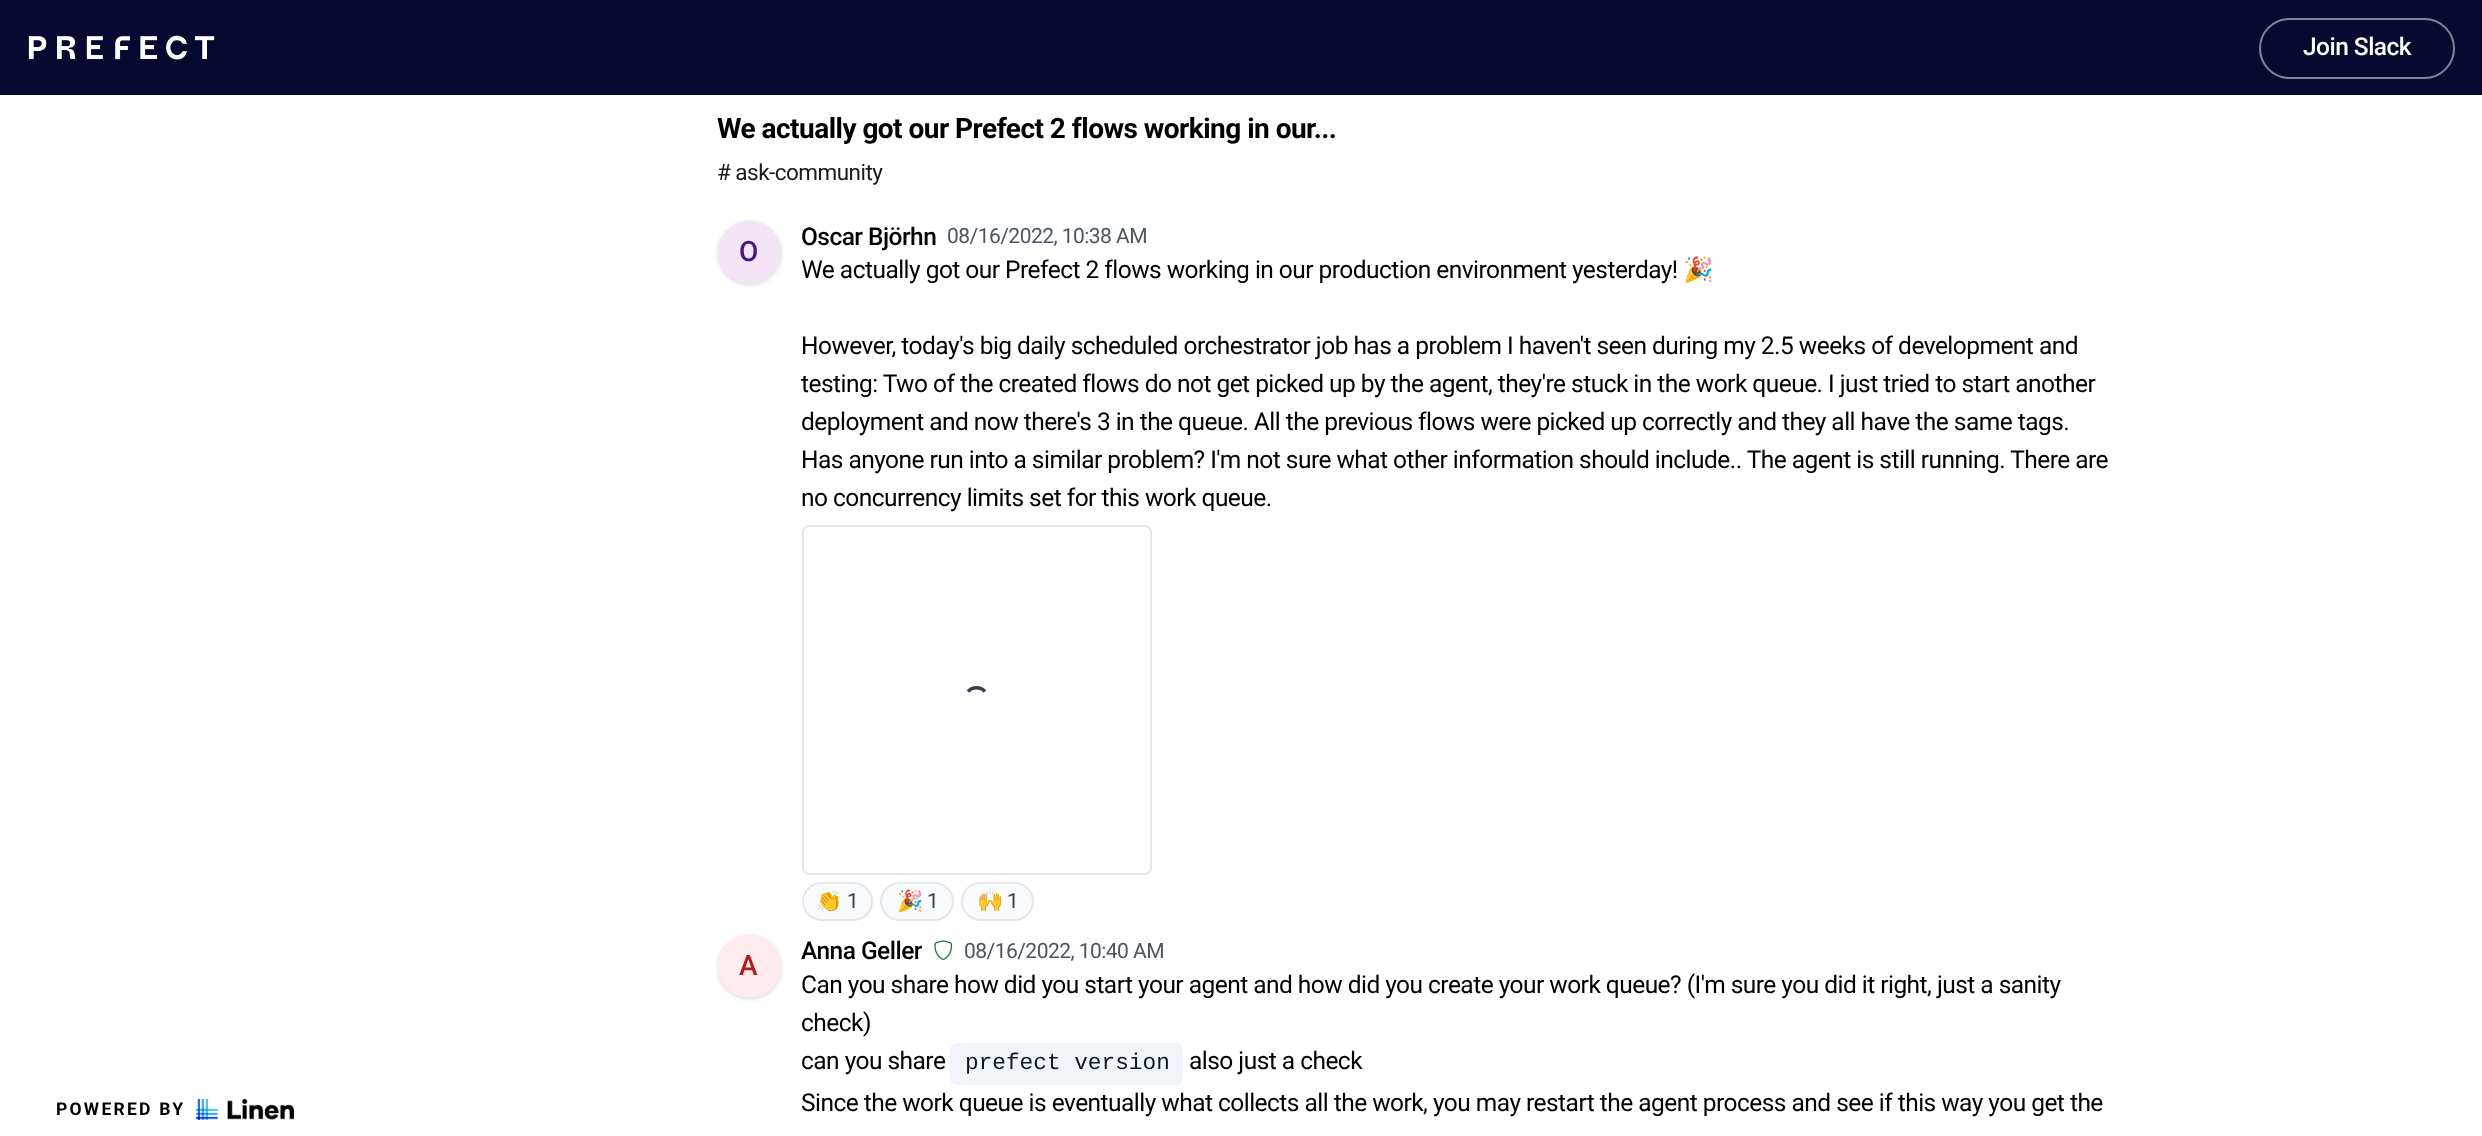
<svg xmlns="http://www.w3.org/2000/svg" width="2482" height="1136">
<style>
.a{font:500 24.5px Roboto;letter-spacing:-0.53px;fill:#fff}
.b{font:bold 17.5px Roboto;letter-spacing:2.25px;fill:#000}
.c{font:bold 28px Roboto;letter-spacing:-0.53px;fill:#000}
.d{font:22.5px Roboto;letter-spacing:-0.53px;fill:#1a1a1a}
.e{font:500 28px Roboto;letter-spacing:-0.53px;fill:#4a148c}
.f{font:500 24.5px Roboto;letter-spacing:-0.53px;fill:#000}
.g{font:21px Roboto;letter-spacing:-0.53px;fill:#4b5563}
.h{font:24.5px Roboto;letter-spacing:-0.53px;fill:#000}
.i{font:24.5px Noto Color Emoji;letter-spacing:-0.53px;fill:#000}
.j{font:21px Noto Color Emoji;letter-spacing:-0.53px;fill:#374151}
.k{font:21px Roboto;letter-spacing:-0.53px;fill:#374151}
.l{font:500 28px Roboto;letter-spacing:-0.53px;fill:#b71c1c}
.m{font:22.75px Liberation Mono;fill:#0f172a}
</style>
<rect width="100%" height="100%" fill="#fff"/>
<path fill="#080930" d="M0 0h2482v95H0z"/>
<image href="1.png" x="28" y="35" width="187" height="25"/>
<rect fill="none" stroke="#848498" stroke-width="2" x="2260" y="19" width="194" height="59" rx="29.5"/>
<image href="2.png" x="196" y="1099" width="98" height="21"/>
<rect fill="#d1d5db" filter="blur(2px)" x="718" y="222" width="63" height="63" rx="31.5"/>
<circle fill="#f3e5f5" cx="749.5" cy="252.5" r="31.5"/>
<rect fill="none" stroke="#e5e7eb" stroke-width="2" x="803" y="526" width="348" height="348" rx="6"/>
<path fill="none" stroke="#374151" stroke-width="3.5" d="M968 691.5c4.5-5 12.5-5 17 0m-17 0c4.5-5 12.5-5 17 0m-17 0c4.5-5 12.5-5 17 0"/>
<rect fill="#f9fafb" stroke="#e5e7eb" stroke-width="2" x="803" y="883" width="69" height="37" rx="18.5"/>
<rect fill="#f9fafb" stroke="#e5e7eb" stroke-width="2" x="881" y="883" width="72" height="37" rx="18.5"/>
<rect fill="#f9fafb" stroke="#e5e7eb" stroke-width="2" x="962" y="883" width="71" height="37" rx="18.5"/>
<rect fill="#d1d5db" filter="blur(2px)" x="718" y="936" width="63" height="63" rx="31.5"/>
<circle fill="#ffebee" cx="749.5" cy="966.5" r="31.5"/>
<image href="3.png" x="934" y="940" width="19" height="21"/>
<rect fill="#f1f5f9" x="950" y="1043" width="233" height="42" rx="7"/>
<text class="a" x="2303" y="55">Join Slack</text>
<text class="b" x="56" y="1115">POWERED BY</text>
<text class="c" x="717" y="138">We actually got our Prefect 2 flows working in our...</text>
<text class="d" x="717" y="180"># ask-community</text>
<text class="e" x="739" y="261">O</text>
<text class="f" x="801" y="245">Oscar Björhn</text>
<text class="g" x="947" y="243">08/16/2022, 10:38 AM</text>
<text class="h" x="801" y="278">We actually got our Prefect 2 flows working in our production environment yesterday!</text>
<text class="i" x="1683" y="278">🎉</text>
<text class="h" x="801" y="354">However, today's big daily scheduled orchestrator job has a problem I haven't seen during my 2.5 weeks of development and</text>
<text class="h" x="801" y="392">testing: Two of the created flows do not get picked up by the agent, they're stuck in the work queue. I just tried to start another</text>
<text class="h" x="801" y="430">deployment and now there's 3 in the queue. All the previous flows were picked up correctly and they all have the same tags.</text>
<text class="h" x="801" y="468">Has anyone run into a similar problem? I'm not sure what other information should include.. The agent is still running. There are</text>
<text class="h" x="801" y="506">no concurrency limits set for this work queue.</text>
<text class="j" x="816" y="908">👏</text>
<text class="k" x="847" y="908">1</text>
<text class="j" x="897" y="908">🎉</text>
<text class="k" x="927" y="908">1</text>
<text class="j" x="977" y="908">🙌</text>
<text class="k" x="1007" y="908">1</text>
<text class="l" x="739" y="975">A</text>
<text class="f" x="801" y="959">Anna Geller</text>
<text class="g" x="964" y="958">08/16/2022, 10:40 AM</text>
<text class="h" x="801" y="993">Can you share how did you start your agent and how did you create your work queue? (I'm sure you did it right, just a sanity</text>
<text class="h" x="801" y="1031">check)</text>
<text class="h" x="801" y="1069">can you share</text>
<text class="m" x="965" y="1069">prefect version</text>
<text class="h" x="1189" y="1069">also just a check</text>
<text class="h" x="801" y="1111">Since the work queue is eventually what collects all the work, you may restart the agent process and see if this way you get the</text>
</svg>
